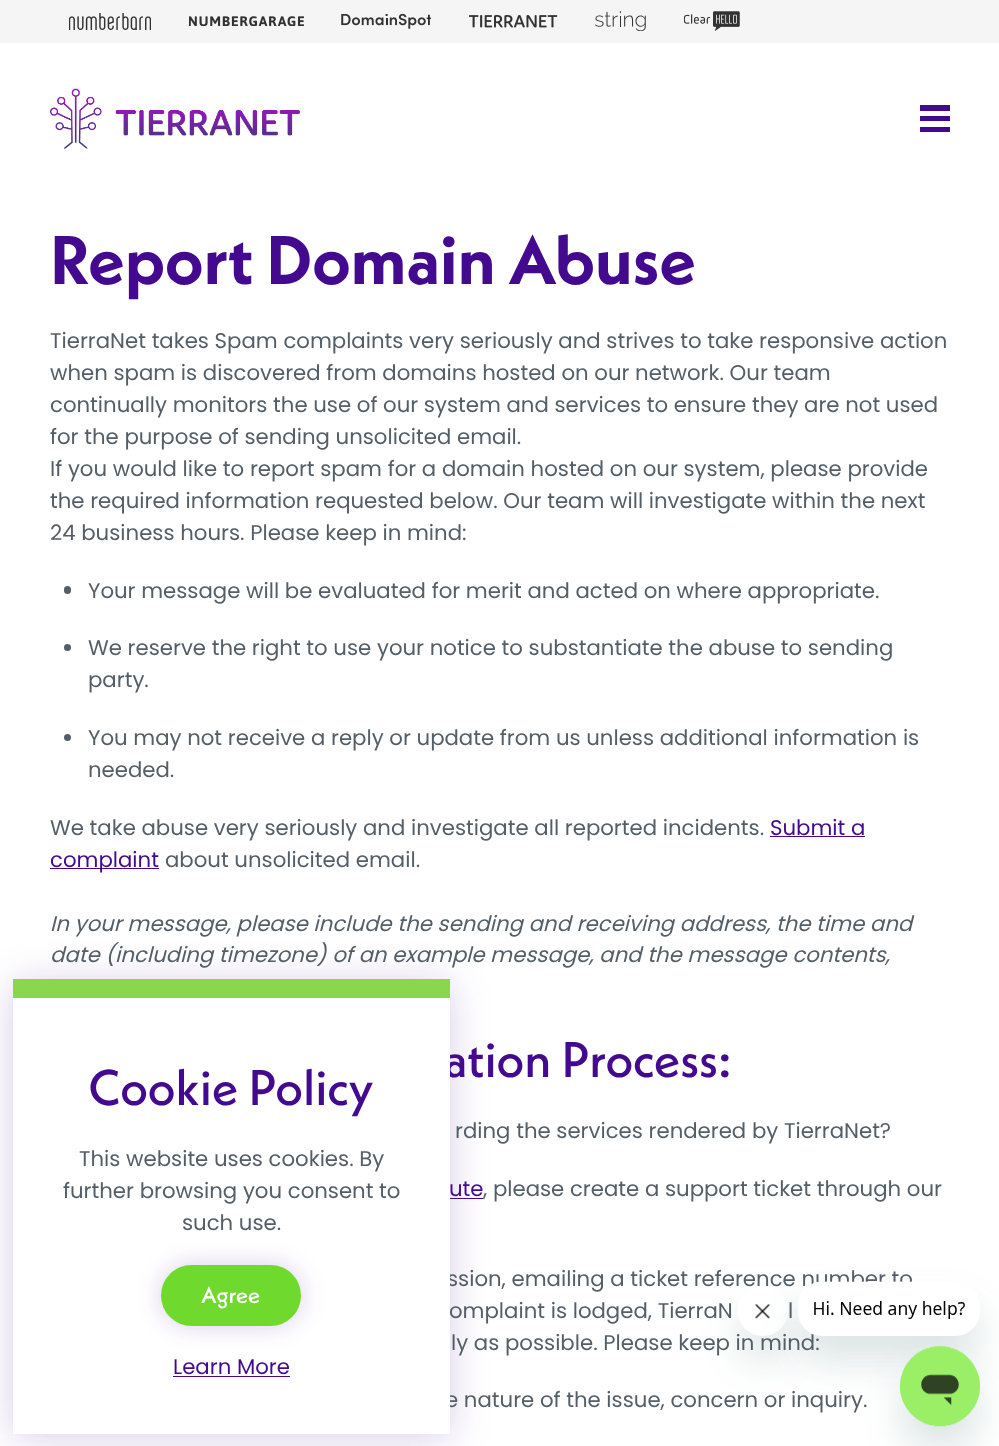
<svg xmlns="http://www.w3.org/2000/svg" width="999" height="1446">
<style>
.a{font:bold 68.75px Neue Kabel;fill:#430a90}
.b{font:21.25px Poppins;fill:#535e66}
.c{font:21.25px Poppins;fill:#430a90}
.d{font:italic 21.25px Poppins;fill:#535e66}
.e{font:500 50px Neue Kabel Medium;fill:#430a90}
.f{font:500 23px Neue Kabel Medium;fill:#fff}
</style>
<defs>
<clipPath id="clip1"><path d="M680 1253h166v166h-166zm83 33c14 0 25 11 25 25c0 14-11 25-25 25c-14 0-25-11-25-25c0-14 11-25 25-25z" clip-rule="evenodd"/></clipPath>
<clipPath id="clip2"><path d="M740 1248h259v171h-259zm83 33h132c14 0 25 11 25 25v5c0 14-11 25-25 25h-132c-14 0-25-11-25-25v-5c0-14 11-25 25-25z" clip-rule="evenodd"/></clipPath>
</defs>
<rect width="100%" height="100%" fill="#fff"/>
<path fill="#f5f5f5" d="M0 0h999v43H0z"/>
<image href="1.png" x="69" y="13" width="82" height="17"/>
<image href="2.png" x="189" y="16" width="115" height="10"/>
<image href="3.png" x="341" y="14" width="90" height="15"/>
<image href="4.png" x="469" y="15" width="89" height="13"/>
<image href="5.png" x="595" y="11" width="51" height="20"/>
<image href="6.png" x="684" y="11" width="56" height="20"/>
<image href="7.png" x="50" y="88" width="250" height="61"/>
<path fill="#430a90" d="M920 105h30v6H920z"/>
<path fill="#430a90" d="M920 116h30v5H920z"/>
<path fill="#430a90" d="M920 127h30v5H920z"/>
<rect fill="#535e66" x="64" y="586" width="7" height="8" rx="3.5"/>
<circle fill="#535e66" cx="67.5" cy="647.5" r="3.5"/>
<circle fill="#535e66" cx="67.5" cy="737.5" r="3.5"/>
<path fill="#430a90" d="M770 836h95v1H770z"/>
<path fill="#430a90" d="M50 868h109v1H50z"/>
<path fill="#430a90" d="M450 1198h33v1H450z"/>
<path fill="#430a9033" filter="blur(19px)" d="M13 983h437v455H13z"/>
<path fill="#8ad64e" d="M13 979h437v19H13z"/>
<g clip-path="url(#clip1)">
<rect fill="#17494d26" filter="blur(19px)" x="738" y="1311" width="50" height="50" rx="25"/>
</g>
<image href="9.png" x="737" y="1301" width="49" height="18"/>
<g clip-path="url(#clip2)">
<rect fill="#17494d26" filter="blur(19px)" x="798" y="1306" width="182" height="55" rx="25"/>
</g>
<text class="a" x="50" y="284">Report Domain Abuse</text>
<text class="b" x="50" y="348">TierraNet takes Spam complaints very seriously and strives to take responsive action</text>
<text class="b" x="50" y="380">when spam is discovered from domains hosted on our network. Our team</text>
<text class="b" x="50" y="412">continually monitors the use of our system and services to ensure they are not used</text>
<text class="b" x="50" y="444">for the purpose of sending unsolicited email.</text>
<text class="b" x="50" y="476">If you would like to report spam for a domain hosted on our system, please provide</text>
<text class="b" x="50" y="508">the required information requested below. Our team will investigate within the next</text>
<text class="b" x="50" y="540">24 business hours. Please keep in mind:</text>
<text class="b" x="88" y="598">Your message will be evaluated for merit and acted on where appropriate.</text>
<text class="b" x="88" y="655">We reserve the right to use your notice to substantiate the abuse to sending</text>
<text class="b" x="88" y="687">party.</text>
<text class="b" x="88" y="745">You may not receive a reply or update from us unless additional information is</text>
<text class="b" x="88" y="777">needed.</text>
<text class="b" x="50" y="835">We take abuse very seriously and investigate all reported incidents.</text>
<text class="c" x="770" y="835">Submit a</text>
<text class="c" x="50" y="867">complaint</text>
<text class="b" x="165" y="867">about unsolicited email.</text>
<text class="d" x="50" y="931">In your message, please include the sending and receiving address, the time and</text>
<text class="d" x="50" y="962">date (including timezone) of an example message, and the message contents,</text>
<text class="e" x="444" y="1077">ation Process:</text>
<text class="b" x="455" y="1138">rding the services rendered by TierraNet?</text>
<text class="c" x="449" y="1196">ute</text>
<text class="b" x="483" y="1196">, please create a support ticket through our</text>
<text class="b" x="447" y="1286">ssion, emailing a ticket reference number to</text>
<text class="b" x="449" y="1318">omplaint is lodged, TierraN</text>
<text class="b" x="788" y="1318">l</text>
<text class="b" x="451" y="1350">ly as possible. Please keep in mind:</text>
<text class="b" x="445" y="1407">e nature of the issue, concern or inquiry.</text>
<path fill="#fff" d="M13 998h437v436H13z"/>
<text class="e" x="88" y="1105">Cookie Policy</text>
<text class="b" x="79" y="1166">This website uses cookies. By</text>
<text class="b" x="63" y="1198">further browsing you consent to</text>
<text class="b" x="182" y="1230">such use.</text>
<rect fill="#430a9033" filter="blur(12.5px)" x="161" y="1265" width="140" height="61" rx="30.5"/>
<rect fill="#70d92e" x="161" y="1265" width="140" height="61" rx="30.5"/>
<text class="f" x="201" y="1303">Agree</text>
<text class="c" x="173" y="1374">Learn More</text>
<path fill="#430a90" d="M173 1376h117v1H173z"/>
<image href="8.png" x="798" y="1281" width="167" height="54"/>
<rect fill="#17494d26" filter="blur(19px)" x="900" y="1371" width="80" height="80" rx="40"/>
<image href="10.png" x="900" y="1346" width="80" height="81"/>
</svg>
